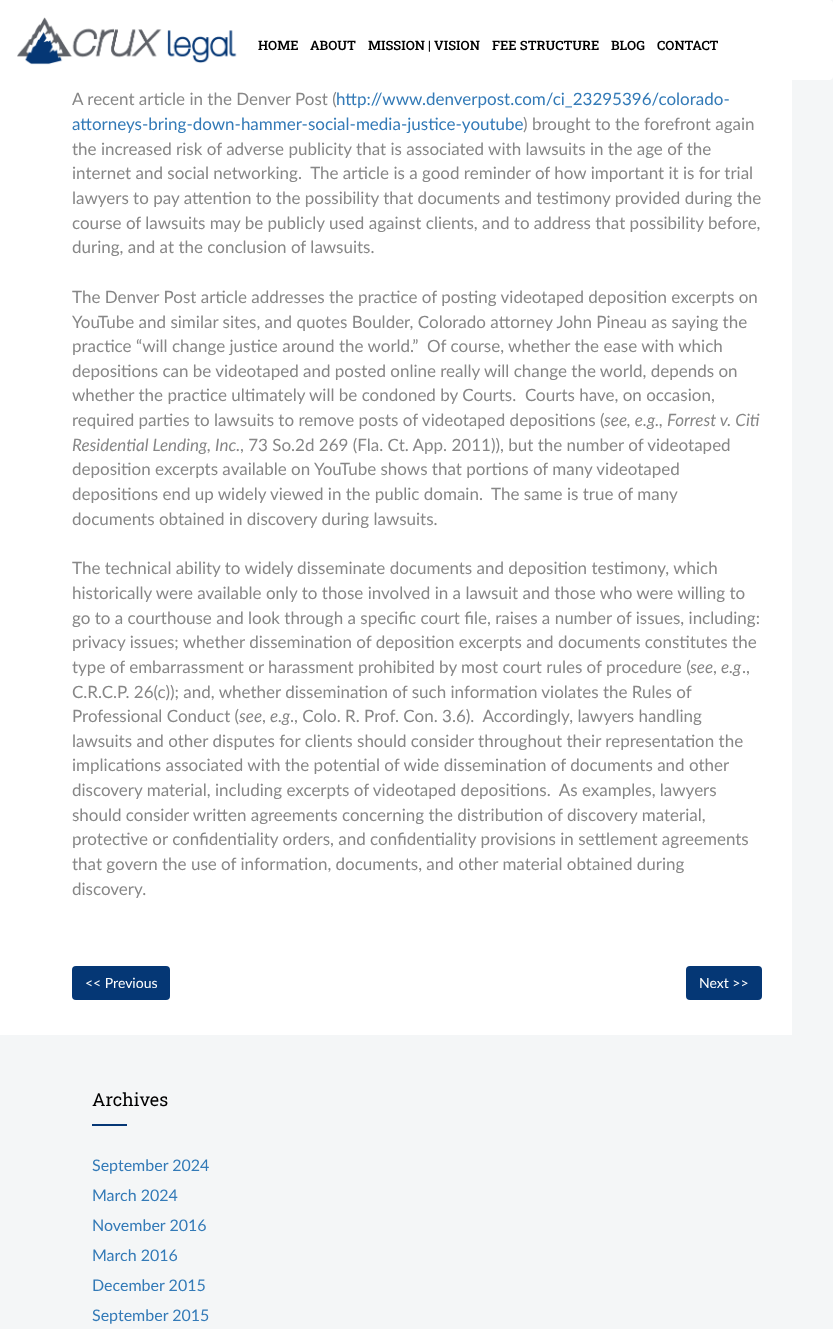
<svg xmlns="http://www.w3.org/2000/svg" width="833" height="1329">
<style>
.a{font:600 13px Roboto Slab;fill:#000}
.b{font:17px Lato;fill:#878787}
.c{font:17px Lato;fill:#337ab7}
.d{font:italic 17px Lato;fill:#878787}
.e{font:14px Lato;fill:#fff}
.f{font:18px Roboto Slab;fill:#000}
.g{font:16px Lato;fill:#337ab7}
</style>
<rect width="100%" height="100%" fill="#f4f6f7"/>
<path fill="#fff" d="M0 0h792v1035H0z"/>
<rect fill="#fff" width="833" height="80" rx="4"/>
<image href="1.png" x="17" y="17" width="220" height="48"/>
<rect fill="#053775" x="72" y="966" width="98" height="34" rx="4"/>
<rect fill="#053775" x="686" y="966" width="76" height="34" rx="4"/>
<path fill="#053775" d="M92 1124h35v2H92z"/>
<text class="a" x="258" y="50">HOME</text>
<text class="a" x="310" y="50">ABOUT</text>
<text class="a" x="368" y="50">MISSION | VISION</text>
<text class="a" x="492" y="50">FEE STRUCTURE</text>
<text class="a" x="611" y="50">BLOG</text>
<text class="a" x="657" y="50">CONTACT</text>
<text class="b" x="72" y="105">A recent article in the Denver Post (</text>
<text class="c" x="336" y="105">http://www.denverpost.com/ci_23295396/colorado-</text>
<text class="c" x="72" y="130">attorneys-bring-down-hammer-social-media-justice-youtube</text>
<text class="b" x="523" y="130">) brought to the forefront again</text>
<text class="b" x="72" y="155">the increased risk of adverse publicity that is associated with lawsuits in the age of the</text>
<text class="b" xml:space="preserve" x="72" y="179">internet and social networking.  The article is a good reminder of how important it is for trial</text>
<text class="b" x="72" y="204">lawyers to pay attention to the possibility that documents and testimony provided during the</text>
<text class="b" x="72" y="229">course of lawsuits may be publicly used against clients, and to address that possibility before,</text>
<text class="b" x="72" y="253">during, and at the conclusion of lawsuits.</text>
<text class="b" x="72" y="303">The Denver Post article addresses the practice of posting videotaped deposition excerpts on</text>
<text class="b" x="72" y="328">YouTube and similar sites, and quotes Boulder, Colorado attorney John Pineau as saying the</text>
<text class="b" xml:space="preserve" x="72" y="352">practice “will change justice around the world.”  Of course, whether the ease with which</text>
<text class="b" x="72" y="377">depositions can be videotaped and posted online really will change the world, depends on</text>
<text class="b" xml:space="preserve" x="72" y="401">whether the practice ultimately will be condoned by Courts.  Courts have, on occasion,</text>
<text class="b" x="72" y="426">required parties to lawsuits to remove posts of videotaped depositions (</text>
<text class="d" x="604" y="426">see, e.g., Forrest v. Citi</text>
<text class="d" x="72" y="451">Residential Lending, Inc.</text>
<text class="b" x="240" y="451">, 73 So.2d 269 (Fla. Ct. App. 2011)), but the number of videotaped</text>
<text class="b" x="72" y="475">deposition excerpts available on YouTube shows that portions of many videotaped</text>
<text class="b" xml:space="preserve" x="72" y="500">depositions end up widely viewed in the public domain.  The same is true of many</text>
<text class="b" x="72" y="525">documents obtained in discovery during lawsuits.</text>
<text class="b" x="72" y="574">The technical ability to widely disseminate documents and deposition testimony, which</text>
<text class="b" x="72" y="599">historically were available only to those involved in a lawsuit and those who were willing to</text>
<text class="b" x="72" y="624">go to a courthouse and look through a specific court file, raises a number of issues, including:</text>
<text class="b" x="72" y="648">privacy issues; whether dissemination of deposition excerpts and documents constitutes the</text>
<text class="b" x="72" y="673">type of embarrassment or harassment prohibited by most court rules of procedure (</text>
<text class="d" x="690" y="673">see</text>
<text class="b" x="713" y="673">,</text>
<text class="d" x="721" y="673">e.g</text>
<text class="b" x="742" y="673">.,</text>
<text class="b" x="72" y="698">C.R.C.P. 26(c)); and, whether dissemination of such information violates the Rules of</text>
<text class="b" x="72" y="722">Professional Conduct (</text>
<text class="d" x="239" y="722">see</text>
<text class="b" x="262" y="722">,</text>
<text class="d" x="270" y="722">e.g</text>
<text class="b" xml:space="preserve" x="290" y="722">., Colo. R. Prof. Con. 3.6).  Accordingly, lawyers handling</text>
<text class="b" x="72" y="747">lawsuits and other disputes for clients should consider throughout their representation the</text>
<text class="b" x="72" y="771">implications associated with the potential of wide dissemination of documents and other</text>
<text class="b" xml:space="preserve" x="72" y="796">discovery material, including excerpts of videotaped depositions.  As examples, lawyers</text>
<text class="b" x="72" y="821">should consider written agreements concerning the distribution of discovery material,</text>
<text class="b" x="72" y="845">protective or confidentiality orders, and confidentiality provisions in settlement agreements</text>
<text class="b" x="72" y="870">that govern the use of information, documents, and other material obtained during</text>
<text class="b" x="72" y="895">discovery.</text>
<text class="e" x="85" y="988">&lt;&lt; Previous</text>
<text class="e" x="699" y="988">Next &gt;&gt;</text>
<text class="f" x="92" y="1106">Archives</text>
<text class="g" x="92" y="1171">September 2024</text>
<text class="g" x="92" y="1201">March 2024</text>
<text class="g" x="92" y="1231">November 2016</text>
<text class="g" x="92" y="1261">March 2016</text>
<text class="g" x="92" y="1291">December 2015</text>
<text class="g" x="92" y="1321">September 2015</text>
</svg>
